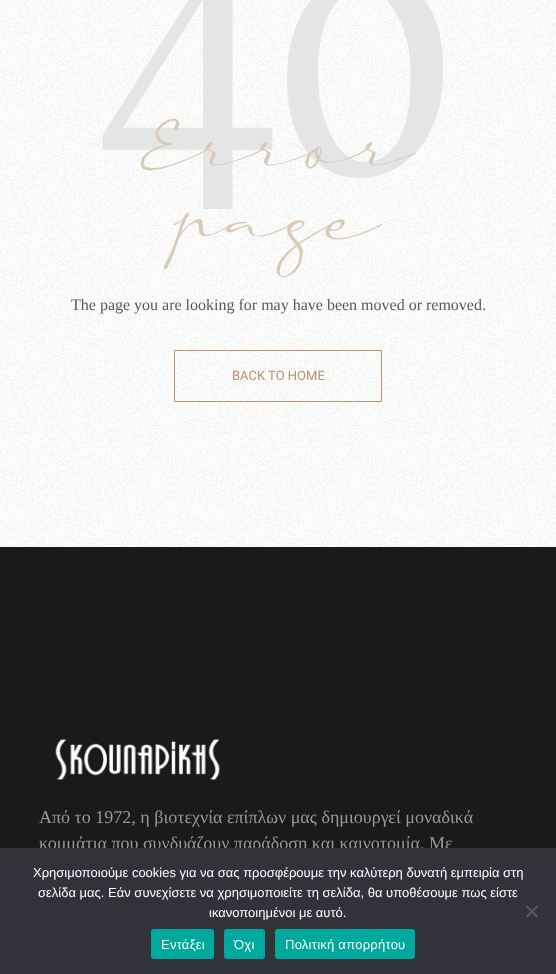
<svg xmlns="http://www.w3.org/2000/svg" width="556" height="974">
<style>
.a{font:350px Belleza;fill:#e5e5e5}
.b{font:90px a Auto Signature;fill:#d7cbb7}
.c{font:16px Liberation Serif;fill:#595959}
.d{font:13px Roboto;fill:#b59175}
.e{font:18px Liberation Serif;fill:#999}
.f{font:13px Liberation Sans;fill:#fff}
.g{font:13px Liberation Sans;letter-spacing:0.25px;fill:#fff}
</style>
<rect width="100%" height="100%" fill="#fff"/>
<image href="1.png" x="0" y="0" width="556" height="547"/>
<path fill="none" stroke="#b59175" d="M174.5 350.5h207v51H174.5z"/>
<path fill="#1a1a1a" d="M0 547h556v301H0z"/>
<image href="2.png" x="55" y="739" width="165" height="41"/>
<text class="a" x="103" y="174">40</text>
<text class="b" x="142" y="166">Error</text>
<text class="b" x="174" y="237">page</text>
<text class="c" x="71" y="310">The page you are looking for may have been moved or removed.</text>
<text class="d" x="232" y="380">BACK TO HOME</text>
<text class="e" x="39" y="823">Από το 1972, η βιοτεχνία επίπλων μας δημιουργεί μοναδικά</text>
<text class="e" x="39" y="849">κομμάτια που συνδυάζουν παράδοση και καινοτομία. Με</text>
<path fill="#32323a" d="M0 848h556v126H0z"/>
<text class="f" x="33" y="877">Χρησιμοποιούμε cookies για να σας προσφέρουμε την καλύτερη δυνατή εμπειρία στη</text>
<text class="f" x="38" y="897">σελίδα μας. Εάν συνεχίσετε να χρησιμοποιείτε τη σελίδα, θα υποθέσουμε πως είστε</text>
<text class="f" x="209" y="917">ικανοποιημένοι με αυτό.</text>
<path fill="#59595d" d="M536.5 905.5l1.5 1.5l-10.5 10.5l-1.5-1.5z"/>
<path fill="#59595d" d="M526 907l1.5-1.5l10.5 10.5l-1.5 1.5z"/>
<rect fill="#00a99d" x="151" y="929" width="63" height="30" rx="3"/>
<text class="g" x="161" y="949">Εντάξει</text>
<rect fill="#00a99d" x="224" y="929" width="41" height="30" rx="3"/>
<text class="g" x="234" y="949">Όχι</text>
<rect fill="#00a99d" x="275" y="929" width="140" height="30" rx="3"/>
<text class="g" x="285" y="949">Πολιτική απορρήτου</text>
</svg>
